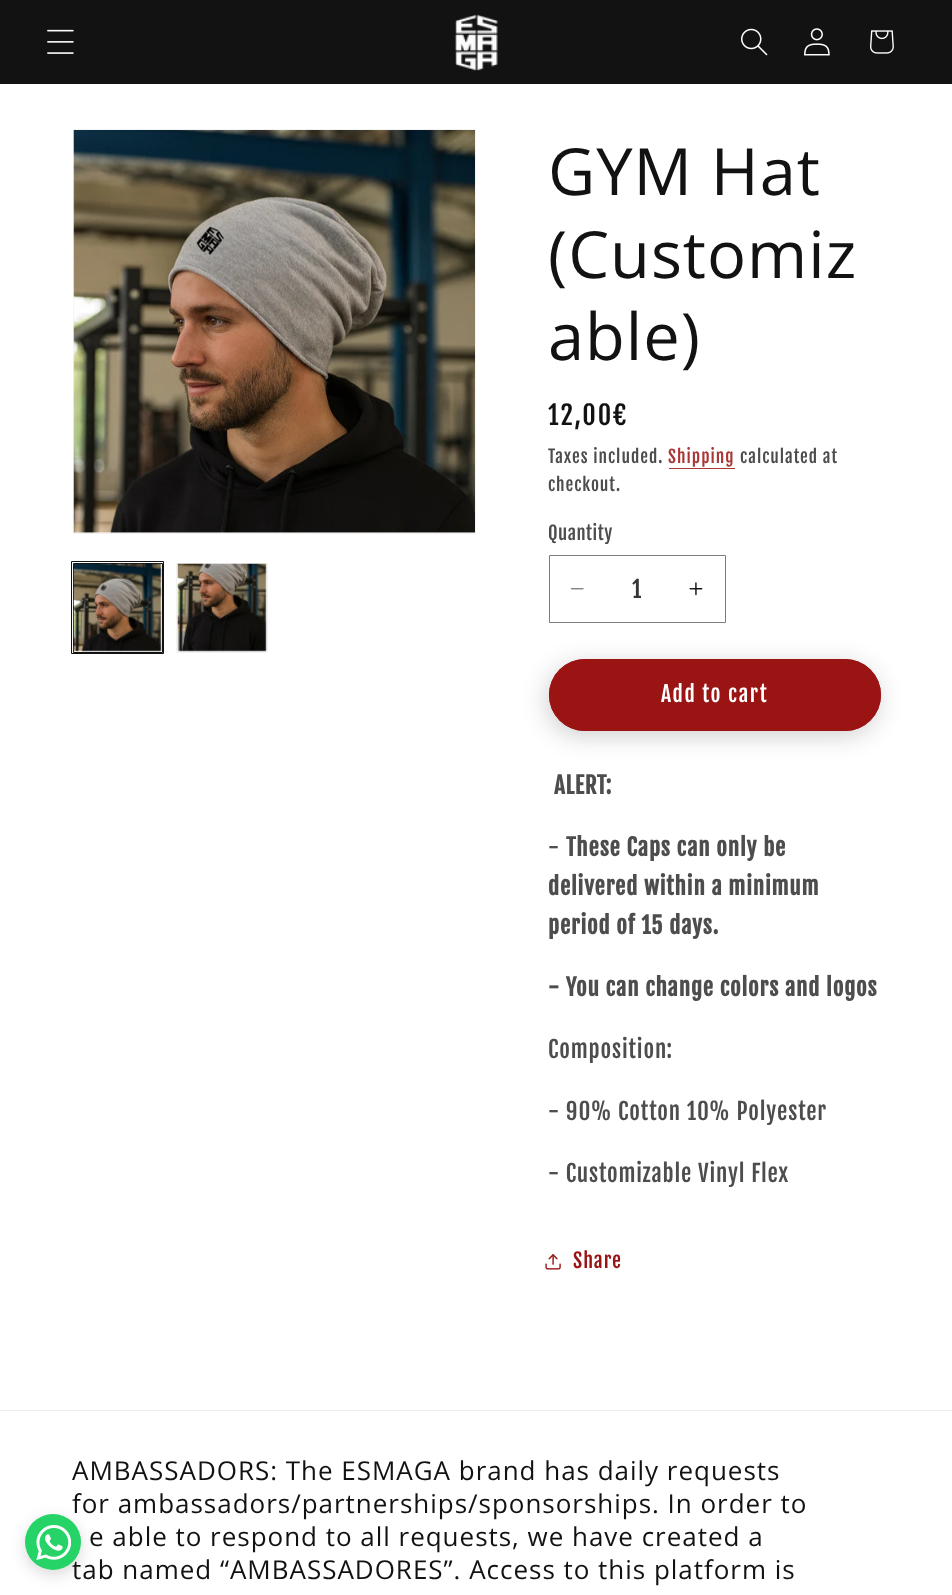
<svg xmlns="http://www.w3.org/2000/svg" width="952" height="1595">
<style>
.a{font:65px Open Sans;letter-spacing:0.98px;fill:#121212}
.b{font:26px Fjalla One;letter-spacing:2px;fill:#121212}
.c{font:17.25px Fjalla One;letter-spacing:1px;fill:#4d4d4d}
.d{font:17.25px Fjalla One;letter-spacing:1px;fill:#a93737}
.e{font:18.5px Fjalla One;letter-spacing:0.5px;fill:#4d4d4d}
.f{font:23px Fjalla One;fill:#363636}
.g{font:21.5px Fjalla One;letter-spacing:1.5px;fill:#fff}
.h{font:bold 23px Fjalla One;letter-spacing:0.85px;fill:#4d4d4d}
.i{font:23px Fjalla One;letter-spacing:0.85px;fill:#4d4d4d}
.j{font:20px Fjalla One;letter-spacing:0.85px;fill:#9a1414}
.k{font:26px Open Sans;letter-spacing:0.98px;fill:#121212}
</style>
<rect width="100%" height="100%" fill="#fff"/>
<path fill="#121212" d="M0 0h952v84H0z"/>
<image href="1.png" x="47" y="29" width="27" height="25"/>
<image href="2.png" x="455" y="14" width="43" height="57"/>
<image href="3.png" x="741" y="28" width="27" height="28"/>
<image href="4.png" x="804" y="28" width="26" height="28"/>
<image href="5.png" x="870" y="30" width="24" height="24"/>
<path fill="none" stroke="#f3f3f3" d="M73.5 129.5h402v404H73.5z"/>
<image href="6.png" x="73" y="130" width="402" height="403"/>
<path fill="none" stroke="#121212" d="M71.5 561.5h92v92H71.5z"/>
<path fill="none" stroke="#121212" d="M73.5 563.5h89v89H73.5z"/>
<image href="7.png" x="73" y="563" width="89" height="89"/>
<path fill="none" stroke="#f3f3f3" d="M176.5 563.5h91v89H176.5z"/>
<image href="8.png" x="177" y="563" width="90" height="89"/>
<path fill="#a93737" d="M669 468h66v1H669z"/>
<image href="9.png" x="570" y="588" width="14" height="2"/>
<image href="10.png" x="689" y="582" width="14" height="14"/>
<path fill="none" stroke="#7d7d7d" d="M549.5 555.5h176v67H549.5z"/>
<rect fill="#12121233" filter="blur(12.5px)" x="546" y="664" width="333" height="72" rx="36"/>
<rect fill="#9a1414" x="549" y="659" width="332" height="72" rx="36"/>
<rect fill="none" stroke="#9a1414" stroke-width="4" x="551" y="661" width="328" height="68" rx="34"/>
<image href="11.png" x="545" y="1254" width="16" height="16"/>
<rect fill="#00000026" filter="blur(7.5px)" x="25" y="1519" width="56" height="56" rx="28"/>
<path fill="#ececec" d="M0 1410h952v1H0z"/>
<text class="a" x="548" y="195">GYM Hat</text>
<text class="a" x="548" y="278">(Customiz</text>
<text class="a" x="548" y="360">able)</text>
<text class="b" x="548" y="425">12,00€</text>
<text class="c" x="548" y="463">Taxes included.</text>
<text class="d" x="668" y="463">Shipping</text>
<text class="c" x="740" y="463">calculated at</text>
<text class="c" x="548" y="491">checkout.</text>
<text class="e" x="548" y="540">Quantity</text>
<text class="f" x="632" y="598">1</text>
<text class="g" x="661" y="702">Add to cart</text>
<text class="h" x="554" y="794">ALERT:</text>
<text class="i" x="548" y="856">-</text>
<text class="h" x="566" y="856">These Caps can only be</text>
<text class="h" x="548" y="895">delivered within a minimum</text>
<text class="h" x="548" y="934">period of 15 days.</text>
<text class="h" x="548" y="996">- You can change colors and logos</text>
<text class="i" x="548" y="1058">Composition:</text>
<text class="i" x="548" y="1120">- 90% Cotton 10% Polyester</text>
<text class="i" x="548" y="1182">- Customizable Vinyl Flex</text>
<text class="j" x="573" y="1268">Share</text>
<text class="k" x="72" y="1480">AMBASSADORS: The ESMAGA brand has daily requests</text>
<text class="k" x="72" y="1513">for ambassadors/partnerships/sponsorships. In order to</text>
<text class="k" x="89" y="1546">e able to respond to all requests, we have created a</text>
<text class="k" x="72" y="1579">tab named “AMBASSADORES”. Access to this platform is</text>
<circle fill="#25d366" cx="53" cy="1542" r="28"/>
<image href="12.png" x="36" y="1525" width="35" height="35"/>
</svg>
